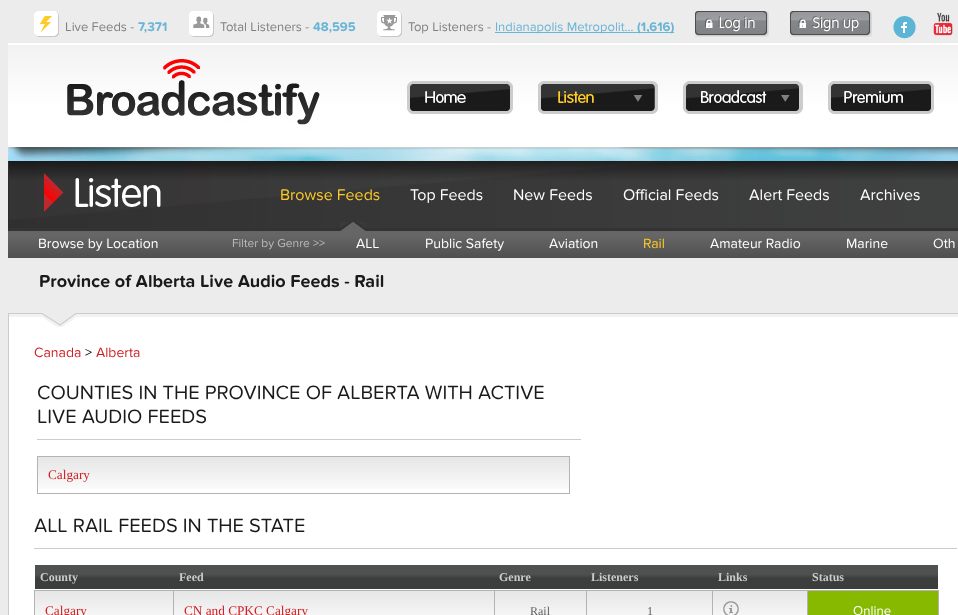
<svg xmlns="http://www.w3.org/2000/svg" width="958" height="615">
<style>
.a{font:13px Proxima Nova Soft;fill:#808080}
.b{font:bold 13px Proxima Nova Soft;fill:#68b5d6}
.c{font:13px Proxima Nova Soft;fill:#68b5d6}
.d{font:16px Proxima Nova Soft;fill:#ffcb27}
.e{font:16px Proxima Nova Soft;fill:#fff}
.f{font:14px Proxima Nova Soft;fill:#fff}
.g{font:12px Proxima Nova Soft;fill:#bbb}
.h{font:14px Proxima Nova Soft;fill:#ffcb27}
.i{font:bold 18px Proxima Nova Soft;fill:#1a1a1a}
.j{font:14px Proxima Nova Soft;fill:#cf1e23}
.k{font:14px Proxima Nova Soft;fill:#000}
.l{font:20px Proxima Nova Soft;fill:#1a1a1a}
.m{font:13.25px Liberation Serif;fill:#cf1e23}
.n{font:bold 12px Liberation Serif;fill:#ccc}
.o{font:12px Liberation Serif;fill:#606060}
.p{font:13.25px Proxima Nova Soft;fill:#fff}
</style>
<rect width="100%" height="100%" fill="#ececec"/>
<image href="1.png" x="34" y="11" width="25" height="26"/>
<image href="2.png" x="189" y="11" width="25" height="26"/>
<image href="3.png" x="377" y="11" width="25" height="26"/>
<path fill="#68b5d6" d="M495 32h179v1H495z"/>
<image href="4.png" x="695" y="11" width="74" height="26"/>
<image href="5.png" x="790" y="11" width="82" height="26"/>
<image href="6.png" x="893" y="16" width="23" height="23"/>
<image href="7.png" x="933" y="12" width="20" height="24"/>
<path fill="#fff" d="M8 43h950v2H8z"/>
<image href="8.png" x="8" y="45" width="950" height="103"/>
<image href="9.png" x="407" y="81" width="106" height="33"/>
<image href="10.png" x="538" y="81" width="120" height="33"/>
<image href="11.png" x="683" y="81" width="120" height="33"/>
<image href="12.png" x="828" y="81" width="106" height="33"/>
<image href="13.png" x="8" y="148" width="950" height="13"/>
<image href="14.png" x="8" y="161" width="950" height="67"/>
<image href="15.png" x="8" y="228" width="950" height="30"/>
<image href="16.png" x="340" y="222" width="26" height="9"/>
<image href="17.png" x="8" y="313" width="950" height="14"/>
<path fill="#fff" d="M9 327h949v288H9z"/>
<path fill="#ccc" d="M8 327h1v288H8z"/>
<path fill="#ccc" d="M37 439h544v1H37z"/>
<image href="18.png" x="38" y="457" width="531" height="32"/>
<path fill="#b3b3b3" d="M37 456h533v1H37z"/>
<path fill="#b3b3b3" d="M569 456h1v38H569z"/>
<path fill="#b3b3b3" d="M37 493h533v1H37z"/>
<path fill="#b3b3b3" d="M37 456h1v38H37z"/>
<path fill="#ccc" d="M34 548h923v1H34z"/>
<image href="19.png" x="35" y="565" width="139" height="24"/>
<image href="20.png" x="174" y="565" width="320" height="24"/>
<image href="21.png" x="494" y="565" width="92" height="24"/>
<image href="22.png" x="586" y="565" width="127" height="24"/>
<image href="23.png" x="713" y="565" width="94" height="24"/>
<image href="24.png" x="807" y="565" width="131" height="24"/>
<image href="25.png" x="35" y="591" width="138" height="24"/>
<path fill="#b3b3b3" d="M807 590h132v1H807z"/>
<path fill="#b3b3b3" d="M807 590h1v25H807z"/>
<path fill="#b3b3b3" d="M712 590h96v1H712z"/>
<path fill="#b3b3b3" d="M712 590h1v25H712z"/>
<path fill="#b3b3b3" d="M586 590h127v1H586z"/>
<path fill="#b3b3b3" d="M586 590h1v25H586z"/>
<path fill="#b3b3b3" d="M494 590h93v1H494z"/>
<path fill="#b3b3b3" d="M494 590h1v25H494z"/>
<path fill="#b3b3b3" d="M173 590h322v1H173z"/>
<path fill="#b3b3b3" d="M173 590h1v25H173z"/>
<path fill="#b3b3b3" d="M34 590h140v1H34z"/>
<path fill="#b3b3b3" d="M34 590h1v25H34z"/>
<image href="26.png" x="174" y="591" width="320" height="24"/>
<image href="27.png" x="495" y="591" width="91" height="24"/>
<image href="28.png" x="587" y="591" width="125" height="24"/>
<image href="29.png" x="713" y="591" width="94" height="24"/>
<image href="30.png" x="723" y="601" width="16" height="14"/>
<path fill="#86b900" d="M808 591h130v24H808z"/>
<path fill="#b3b3b3" d="M938 590h1v25H938z"/>
<text class="a" x="65" y="31">Live Feeds -</text>
<text class="b" x="138" y="31">7,371</text>
<text class="a" x="220" y="31">Total Listeners -</text>
<text class="b" x="313" y="31">48,595</text>
<text class="a" x="408" y="31">Top Listeners -</text>
<text class="c" x="495" y="31">Indianapolis Metropolit...</text>
<text class="b" x="637" y="31">(1,616)</text>
<text class="d" x="280" y="200">Browse Feeds</text>
<text class="e" x="410" y="200">Top Feeds</text>
<text class="e" x="513" y="200">New Feeds</text>
<text class="e" x="623" y="200">Official Feeds</text>
<text class="e" x="749" y="200">Alert Feeds</text>
<text class="e" x="860" y="200">Archives</text>
<text class="f" x="38" y="248">Browse by Location</text>
<text class="g" x="232" y="247">Filter by Genre &gt;&gt;</text>
<text class="f" x="356" y="248">ALL</text>
<text class="f" x="425" y="248">Public Safety</text>
<text class="f" x="549" y="248">Aviation</text>
<text class="h" x="643" y="248">Rail</text>
<text class="f" x="710" y="248">Amateur Radio</text>
<text class="f" x="846" y="248">Marine</text>
<text class="f" x="933" y="248">Oth</text>
<text class="i" x="39" y="287">Province of Alberta Live Audio Feeds - Rail</text>
<text class="j" x="34" y="357">Canada</text>
<text class="k" x="85" y="357">&gt;</text>
<text class="j" x="96" y="357">Alberta</text>
<text class="l" x="37" y="399">COUNTIES IN THE PROVINCE OF ALBERTA WITH ACTIVE</text>
<text class="l" x="37" y="423">LIVE AUDIO FEEDS</text>
<text class="m" x="48" y="479">Calgary</text>
<text class="l" x="34" y="532">ALL RAIL FEEDS IN THE STATE</text>
<text class="n" x="40" y="581">County</text>
<text class="n" x="179" y="581">Feed</text>
<text class="n" x="499" y="581">Genre</text>
<text class="n" x="591" y="581">Listeners</text>
<text class="n" x="718" y="581">Links</text>
<text class="n" x="812" y="581">Status</text>
<text class="m" x="45" y="615">Calgary</text>
<text class="m" x="184" y="615">CN and CPKC Calgary</text>
<text class="o" x="530" y="615">Rail</text>
<text class="o" x="647" y="615">1</text>
<text class="p" x="853" y="615">Online</text>
</svg>
